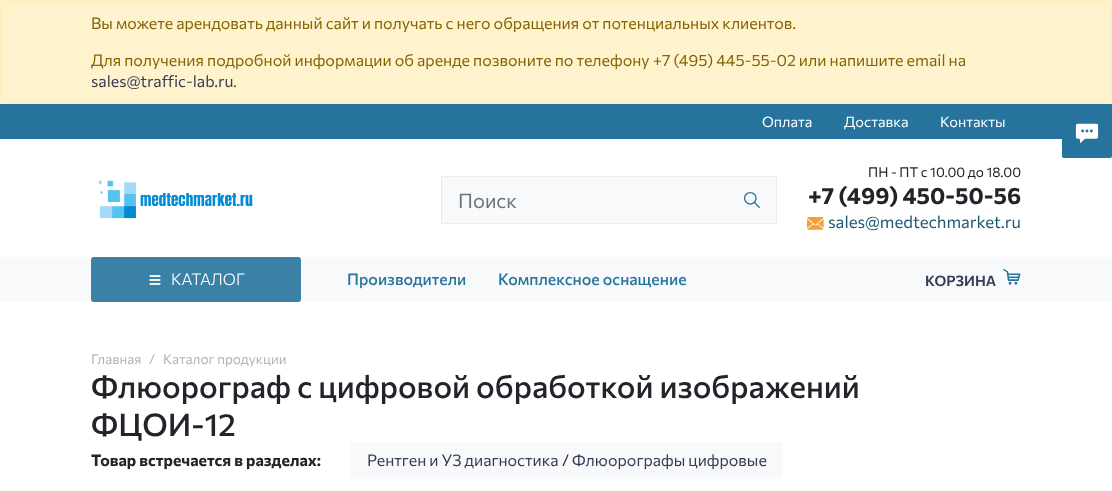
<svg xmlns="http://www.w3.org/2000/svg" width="1112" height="491">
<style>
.a{font:16px Commissioner;fill:#856404}
.b{font:16px Commissioner;fill:#373b57}
.c{font:14.5px Commissioner;fill:#fff}
.d{font:20px Commissioner;fill:#6c757d}
.e{font:13.6px Commissioner;fill:#212529}
.f{font:bold 23px Commissioner;fill:#212529}
.g{font:16.75px Commissioner;fill:#1c5675}
.h{font:300 16px Commissioner;fill:#fff}
.i{font:500 16px Commissioner;fill:#26749e}
.j{font:600 14.5px Commissioner;fill:#373b57}
.k{font:13.6px Commissioner;fill:#adb5bd}
.l{font:500 31.25px Commissioner;fill:#212529}
.m{font:bold 16px Commissioner;fill:#212529}
.n{font:16px Commissioner;fill:#212529}
</style>
<rect width="100%" height="100%" fill="#fff"/>
<rect fill="#fff3cd" stroke="#ffeeba" x="0.5" y="0.5" width="1111" height="103" rx="0.5"/>
<path fill="#26749e" d="M0 104h1112v35H0z"/>
<image href="1.png" x="98" y="180" width="155" height="39"/>
<path fill="#f8f9fa" stroke="#e9ecef" d="M441.5 176.5h335v47H441.5z"/>
<image href="2.png" x="744" y="192" width="16" height="16"/>
<image href="3.png" x="807" y="217" width="17" height="13"/>
<path fill="#f8f9fa" d="M0 257h1112v45H0z"/>
<rect fill="#3b81a7" x="91" y="257" width="210" height="45" rx="3"/>
<image href="4.png" x="149" y="275" width="12" height="10"/>
<image href="5.png" x="1003" y="269" width="18" height="16"/>
<path fill="#f8f9fa" d="M351 442h432v37H351z"/>
<rect fill="#26749e" x="1062" y="108" width="50" height="50" rx="2"/>
<image href="6.png" x="1075" y="123" width="24" height="20"/>
<text class="a" x="91" y="29">Вы можете арендовать данный сайт и получать с него обращения от потенциальных клиентов.</text>
<text class="a" x="91" y="66">Для получения подробной информации об аренде позвоните по телефону +7 (495) 445-55-02 или напишите email на</text>
<text class="b" x="91" y="87">sales@traffic-lab.ru</text>
<text class="a" x="233" y="87">.</text>
<text class="c" x="762" y="127">Оплата</text>
<text class="c" x="844" y="127">Доставка</text>
<text class="c" x="940" y="127">Контакты</text>
<text class="d" x="458" y="208">Поиск</text>
<text class="e" x="868" y="177">ПН - ПТ с 10.00 до 18.00</text>
<text class="f" x="808" y="204">+7 (499) 450-50-56</text>
<text class="g" x="828" y="228">sales@medtechmarket.ru</text>
<text class="h" x="171" y="285">КАТАЛОГ</text>
<text class="i" x="347" y="285">Производители</text>
<text class="i" x="498" y="285">Комплексное оснащение</text>
<text class="j" x="925" y="286">КОРЗИНА</text>
<text class="k" x="91" y="364">Главная</text>
<text class="k" x="149" y="364">/</text>
<text class="k" x="163" y="364">Каталог продукции</text>
<text class="l" x="91" y="398">Флюорограф с цифровой обработкой изображений</text>
<text class="l" x="91" y="436">ФЦОИ-12</text>
<text class="m" x="91" y="466">Товар встречается в разделах:</text>
<text class="b" x="367" y="466">Рентген и УЗ диагностика</text>
<text class="n" x="562" y="466">/</text>
<text class="b" x="572" y="466">Флюорографы цифровые</text>
</svg>
